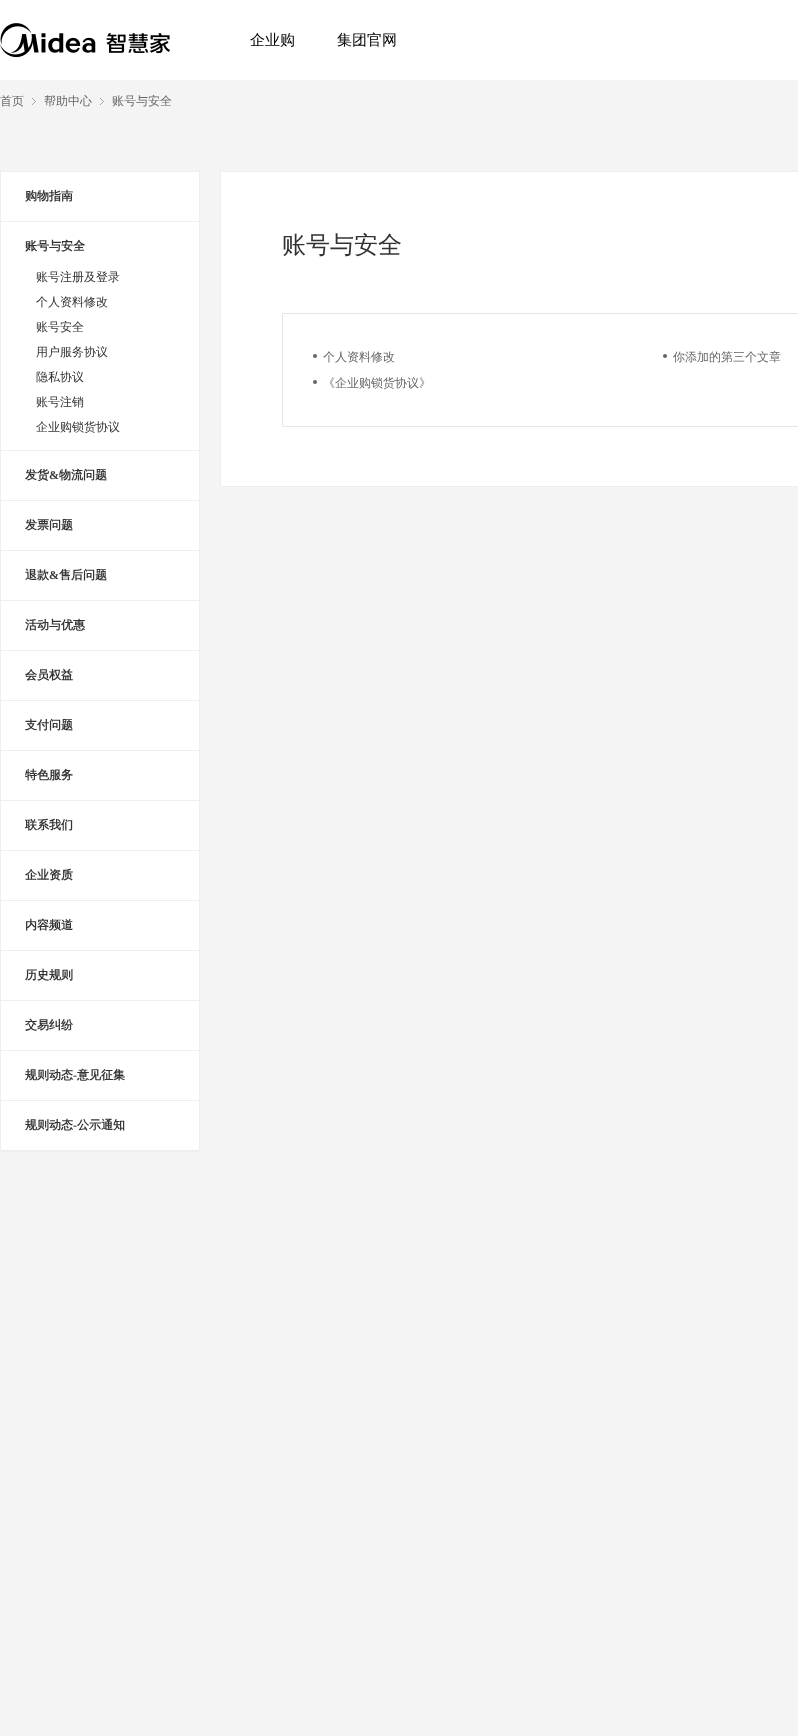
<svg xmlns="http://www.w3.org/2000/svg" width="798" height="1736">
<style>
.a{font:500 15px WenQuanYi Zen Hei;fill:#000}
.b{font:500 12px WenQuanYi Zen Hei;fill:#666}
.c{font:bold 12px WenQuanYi Zen Hei;fill:#333}
.d{font:500 12px WenQuanYi Zen Hei;fill:#333}
.e{font:bold 12px Liberation Serif;fill:#333}
.f{font:500 24px WenQuanYi Zen Hei;fill:#333}
</style>
<rect width="100%" height="100%" fill="#f4f4f4"/>
<path fill="#fff" d="M0 0h798v80H0z"/>
<image href="1.png" x="0" y="23" width="170" height="35"/>
<image href="2.png" x="32" y="98" width="4" height="7"/>
<image href="2.png" x="100" y="98" width="4" height="7"/>
<path fill="#fff" d="M1 172h198v978H1z"/>
<path fill="none" stroke="#eee" d="M0.5 171.5h199v980H0.5z"/>
<path fill="#eee" d="M1 221h198v1H1z"/>
<path fill="#eee" d="M1 450h198v1H1z"/>
<path fill="#eee" d="M1 500h198v1H1z"/>
<path fill="#eee" d="M1 550h198v1H1z"/>
<path fill="#eee" d="M1 600h198v1H1z"/>
<path fill="#eee" d="M1 650h198v1H1z"/>
<path fill="#eee" d="M1 700h198v1H1z"/>
<path fill="#eee" d="M1 750h198v1H1z"/>
<path fill="#eee" d="M1 800h198v1H1z"/>
<path fill="#eee" d="M1 850h198v1H1z"/>
<path fill="#eee" d="M1 900h198v1H1z"/>
<path fill="#eee" d="M1 950h198v1H1z"/>
<path fill="#eee" d="M1 1000h198v1H1z"/>
<path fill="#eee" d="M1 1050h198v1H1z"/>
<path fill="#eee" d="M1 1100h198v1H1z"/>
<path fill="#eee" d="M1 1150h198v1H1z"/>
<path fill="#fff" stroke="#eee" d="M220.5 171.5h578v315H220.5z"/>
<path fill="none" stroke="#e6e6e6" d="M282.5 313.5h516v113H282.5z"/>
<circle fill="#666" cx="315" cy="356" r="2"/>
<circle fill="#666" cx="665" cy="356" r="2"/>
<circle fill="#666" cx="315" cy="382" r="2"/>
<text class="a" x="250" y="45">企业购</text>
<text class="a" x="337" y="45">集团官网</text>
<text class="b" x="0" y="105">首页</text>
<text class="b" x="44" y="105">帮助中心</text>
<text class="b" x="112" y="105">账号与安全</text>
<text class="c" x="25" y="200">购物指南</text>
<text class="c" x="25" y="250">账号与安全</text>
<text class="d" x="36" y="281">账号注册及登录</text>
<path fill="#fff" d="M66 270h1v1H66z"/>
<text class="d" x="36" y="306">个人资料修改</text>
<text class="d" x="36" y="331">账号安全</text>
<text class="d" x="36" y="356">用户服务协议</text>
<text class="d" x="36" y="381">隐私协议</text>
<text class="d" x="36" y="406">账号注销</text>
<text class="d" x="36" y="431">企业购锁货协议</text>
<text class="c" x="25" y="479">发货</text>
<text class="e" x="49" y="479">&amp;</text>
<text class="c" x="59" y="479">物流问题</text>
<text class="c" x="25" y="529">发票问题</text>
<text class="c" x="25" y="579">退款</text>
<text class="e" x="49" y="579">&amp;</text>
<text class="c" x="59" y="579">售后问题</text>
<text class="c" x="25" y="629">活动与优惠</text>
<text class="c" x="25" y="679">会员权益</text>
<text class="c" x="25" y="729">支付问题</text>
<text class="c" x="25" y="779">特色服务</text>
<text class="c" x="25" y="829">联系我们</text>
<text class="c" x="25" y="879">企业资质</text>
<text class="c" x="25" y="929">内容频道</text>
<text class="c" x="25" y="979">历史规则</text>
<text class="c" x="25" y="1029">交易纠纷</text>
<text class="c" x="25" y="1079">规则动态</text>
<text class="e" x="73" y="1079">-</text>
<text class="c" x="77" y="1079">意见征集</text>
<text class="c" x="25" y="1129">规则动态</text>
<text class="e" x="73" y="1129">-</text>
<text class="c" x="77" y="1129">公示通知</text>
<text class="f" x="282" y="253">账号与安全</text>
<text class="b" x="323" y="361">个人资料修改</text>
<text class="b" x="673" y="361">你添加的第三个文章</text>
<text class="b" x="323" y="387">《企业购锁货协议》</text>
</svg>
